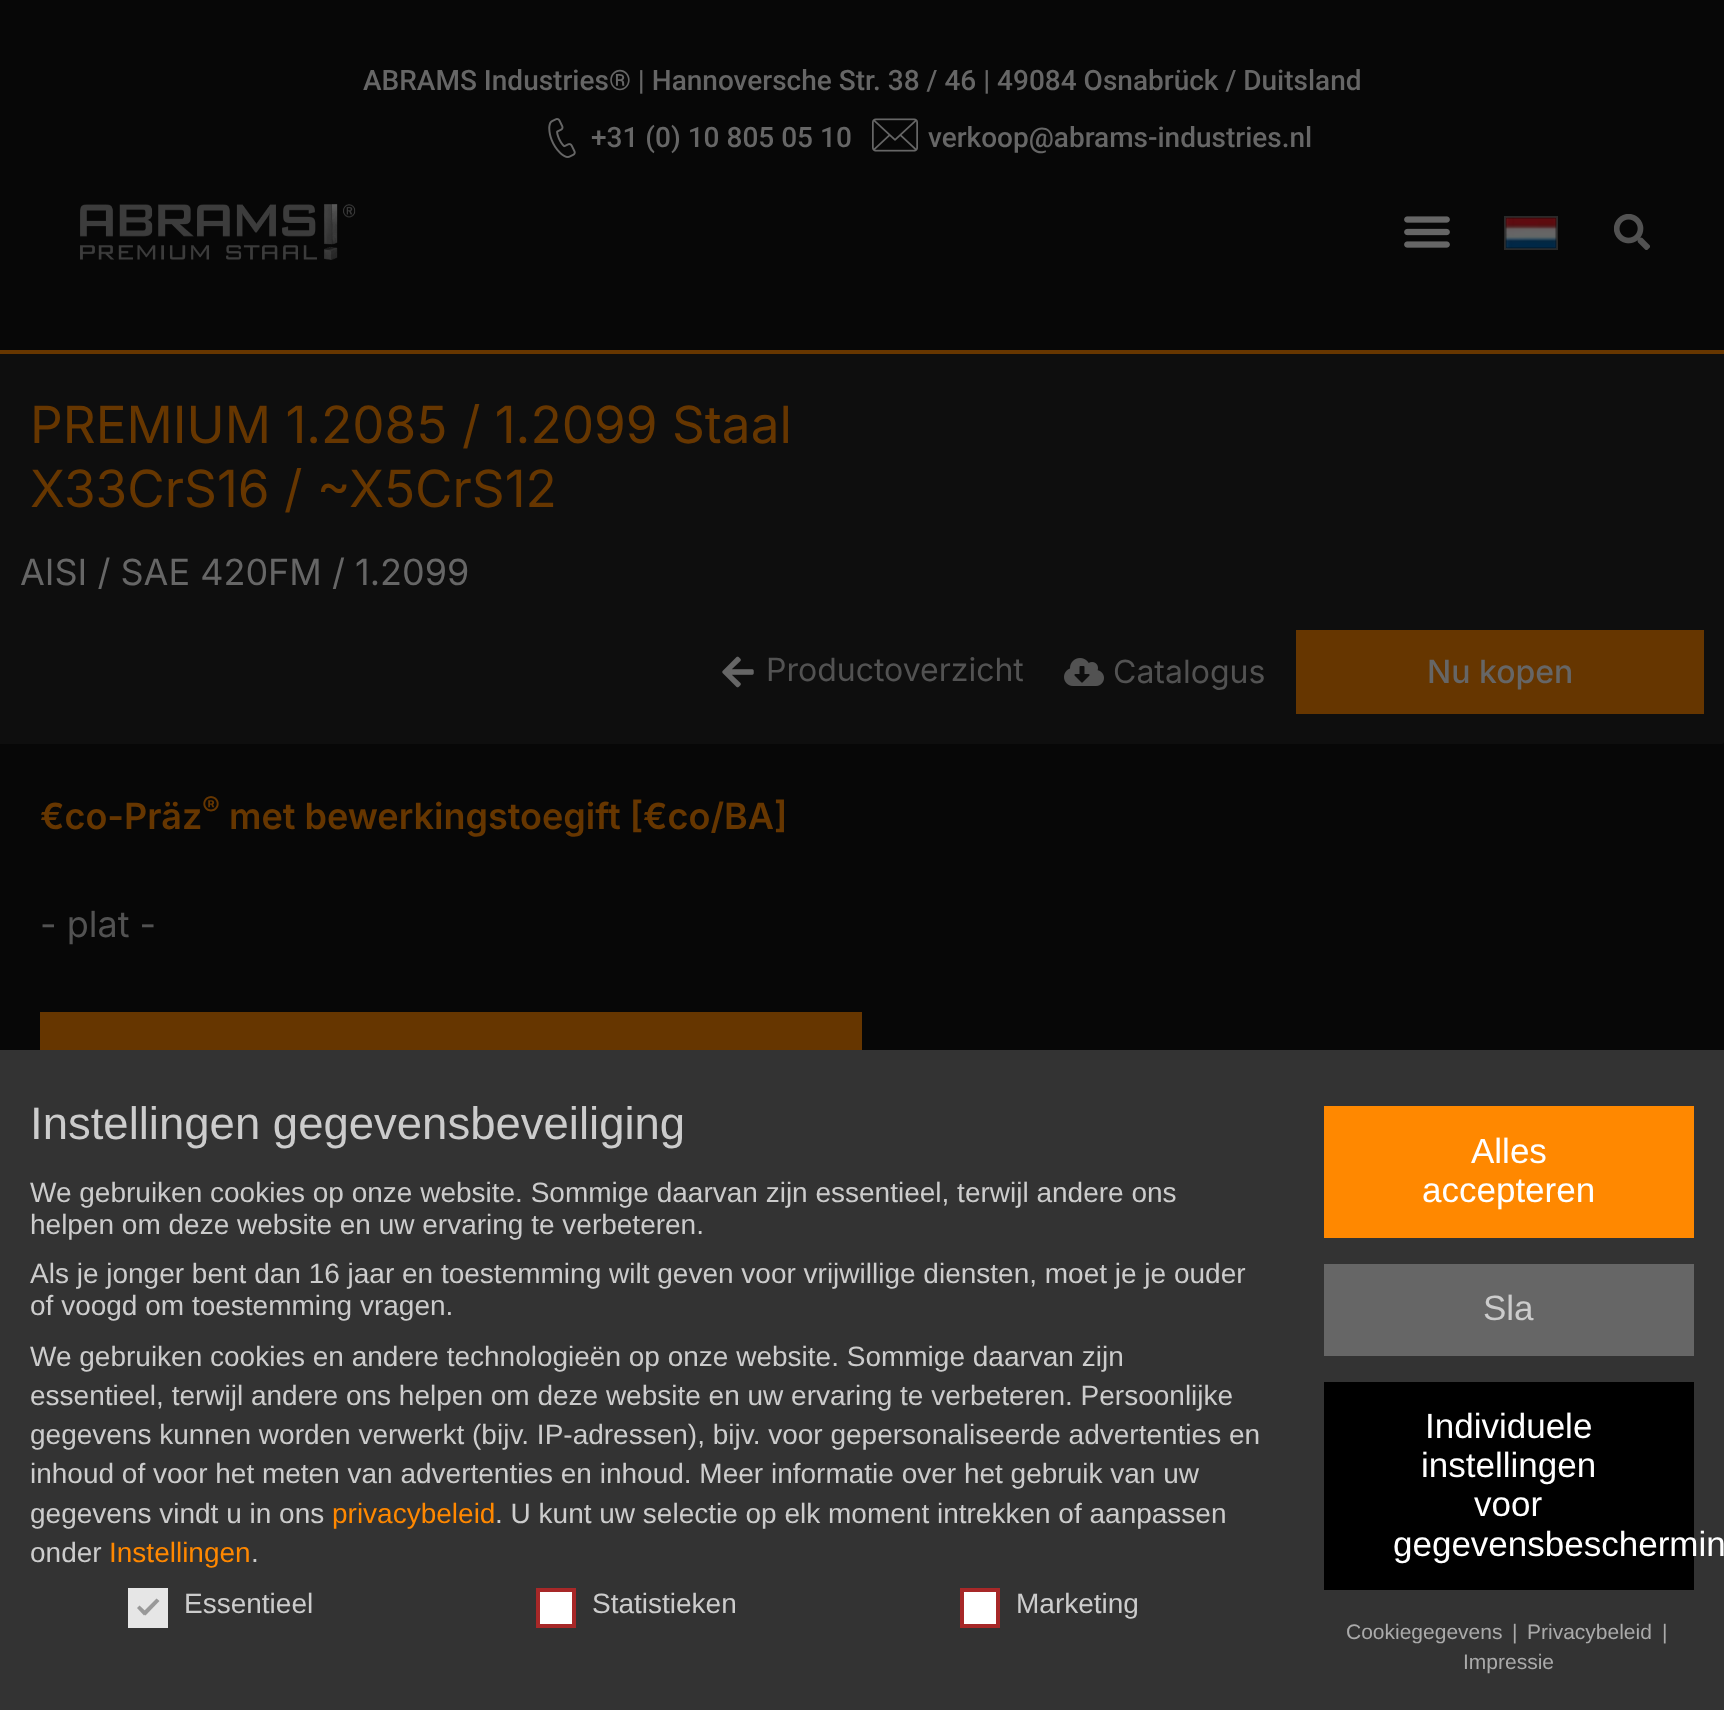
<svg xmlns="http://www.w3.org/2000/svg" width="1724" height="1710">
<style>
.a{font:500 28px Roboto;fill:#666}
.b{font:51.25px Inter;fill:#663600}
.c{font:36px Inter;fill:#666}
.d{font:32px Inter;fill:#525252}
.e{font:500 32px Inter;fill:#666}
.f{font:600 36px Inter;fill:#663600}
.g{font:600 27px Inter;fill:#663600}
.h{font:36px Inter;fill:#525252}
.i{font:45.5px Liberation Sans;fill:#ccc}
.j{font:28px Liberation Sans;fill:#ccc}
.k{font:28px Liberation Sans;fill:#f80}
.l{font:35px Liberation Sans;fill:#fff}
.m{font:35px Liberation Sans;fill:#ccc}
.n{font:21px Liberation Sans;fill:#aaa}
</style>
<rect width="100%" height="100%" fill="#070707"/>
<path fill="#663600" d="M0 350h1724v4H0z"/>
<image href="1.png" x="548" y="118" width="28" height="40"/>
<image href="2.png" x="872" y="118" width="46" height="34"/>
<image href="3.png" x="80" y="204" width="276" height="56"/>
<image href="4.png" x="1404" y="216" width="46" height="32"/>
<path fill="none" stroke="#292929" stroke-width="2" d="M1505 217h52v32H1505z"/>
<image href="5.png" x="1505" y="217" width="52" height="32"/>
<image href="6.png" x="1614" y="214" width="36" height="36"/>
<path fill="#0e0e0e" d="M0 354h1724v388c0 1-1 2-2 2h-1722z"/>
<image href="7.png" x="722" y="656" width="32" height="32"/>
<image href="8.png" x="1064" y="658" width="40" height="28"/>
<path fill="#663600" d="M1296 630h408v84H1296z"/>
<path fill="#663600" d="M40 1012h822v38H40z"/>
<path fill="#333" d="M0 1050h1724v660H0z"/>
<path fill="#e6e6e6" d="M128 1588h40v40H128z"/>
<path fill="#999" d="M156.5 1598.5l3 2.5l-14 14.5l-3-3z"/>
<path fill="#999" d="M139.5 1605.5l7.5 7l-3 3l-7-7.5z"/>
<path fill="#fff" stroke="#a72828" stroke-width="4" d="M538 1590h36v36H538z"/>
<path fill="#fff" stroke="#a72828" stroke-width="4" d="M962 1590h36v36H962z"/>
<path fill="#f80" d="M1324 1106h370v132H1324z"/>
<path fill="#666" d="M1324 1264h370v92H1324z"/>
<path fill="#000" d="M1324 1382h370v208H1324z"/>
<text class="a" x="363" y="90">ABRAMS Industries® | Hannoversche Str. 38 / 46 | 49084 Osnabrück / Duitsland</text>
<text class="a" x="591" y="147">+31 (0) 10 805 05 10</text>
<text class="a" x="928" y="147">verkoop@abrams-industries.nl</text>
<text class="b" x="30" y="443">PREMIUM 1.2085 / 1.2099 Staal</text>
<text class="b" x="30" y="507">X33CrS16 / ~X5CrS12</text>
<text class="c" x="20" y="585">AISI / SAE 420FM / 1.2099</text>
<text class="d" x="766" y="681">Productoverzicht</text>
<text class="d" x="1113" y="683">Catalogus</text>
<text class="e" x="1427" y="683">Nu kopen</text>
<text class="f" x="40" y="829">€co-Präz</text>
<text class="g" x="202" y="816">®</text>
<text class="f" x="229" y="829">met bewerkingstoegift [€co/BA]</text>
<text class="h" x="40" y="937">- plat -</text>
<text class="i" x="30" y="1139">Instellingen gegevensbeveiliging</text>
<text class="j" x="30" y="1202">We gebruiken cookies op onze website. Sommige daarvan zijn essentieel, terwijl andere ons</text>
<text class="j" x="30" y="1234">helpen om deze website en uw ervaring te verbeteren.</text>
<text class="j" x="30" y="1283">Als je jonger bent dan 16 jaar en toestemming wilt geven voor vrijwillige diensten, moet je je ouder</text>
<text class="j" x="30" y="1315">of voogd om toestemming vragen.</text>
<text class="j" x="30" y="1366">We gebruiken cookies en andere technologieën op onze website. Sommige daarvan zijn</text>
<text class="j" x="30" y="1405">essentieel, terwijl andere ons helpen om deze website en uw ervaring te verbeteren. Persoonlijke</text>
<text class="j" x="30" y="1444">gegevens kunnen worden verwerkt (bijv. IP-adressen), bijv. voor gepersonaliseerde advertenties en</text>
<text class="j" x="30" y="1483">inhoud of voor het meten van advertenties en inhoud. Meer informatie over het gebruik van uw</text>
<text class="j" x="30" y="1523">gegevens vindt u in ons</text>
<text class="k" x="332" y="1523">privacybeleid</text>
<text class="j" x="495" y="1523">. U kunt uw selectie op elk moment intrekken of aanpassen</text>
<text class="j" x="30" y="1562">onder</text>
<text class="k" x="109" y="1562">Instellingen</text>
<text class="j" x="251" y="1562">.</text>
<text class="j" x="184" y="1613">Essentieel</text>
<text class="j" x="592" y="1613">Statistieken</text>
<text class="j" x="1016" y="1613">Marketing</text>
<text class="l" x="1471" y="1163">Alles</text>
<text class="l" x="1422" y="1202">accepteren</text>
<text class="m" x="1483" y="1320">Sla</text>
<text class="l" x="1425" y="1438">Individuele</text>
<text class="l" x="1421" y="1477">instellingen</text>
<text class="l" x="1474" y="1516">voor</text>
<text class="l" x="1393" y="1556">gegevensbeschermin</text>
<text class="n" x="1346" y="1639">Cookiegegevens</text>
<text class="n" x="1512" y="1639">|</text>
<text class="n" x="1527" y="1639">Privacybeleid</text>
<text class="n" x="1662" y="1639">|</text>
<text class="n" x="1463" y="1669">Impressie</text>
</svg>
